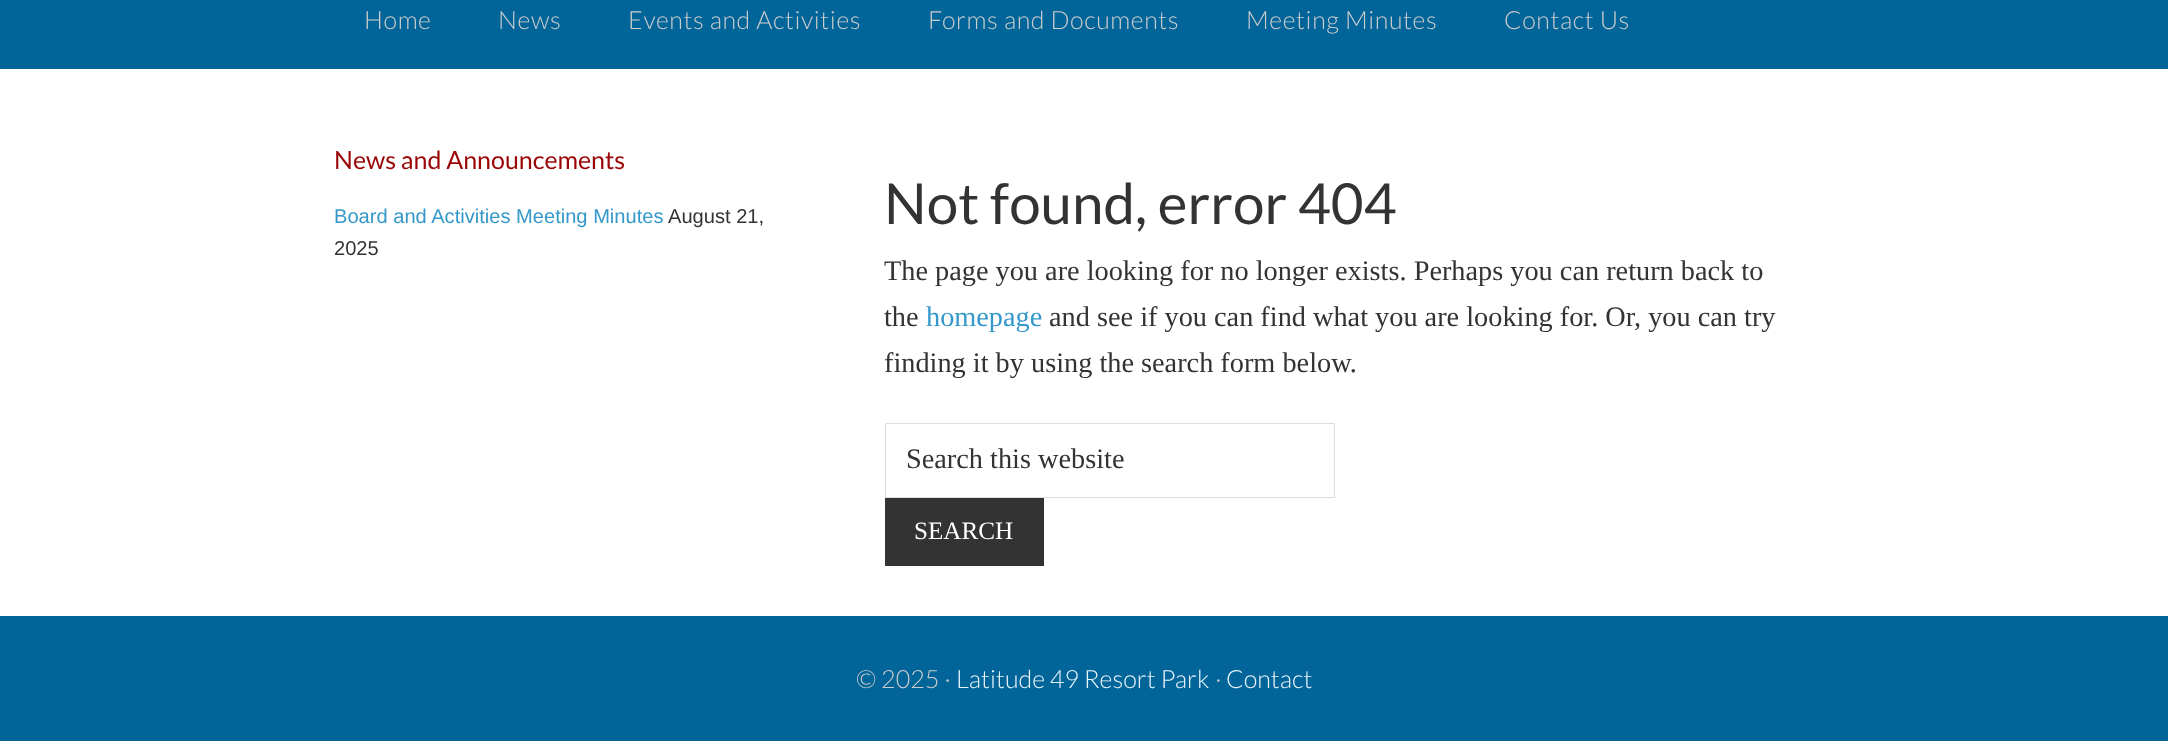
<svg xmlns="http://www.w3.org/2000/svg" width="2168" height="741">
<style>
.a{font:300 25px Lato;letter-spacing:0.6px;fill:#ccc}
.b{font:25px Lato;fill:#9b0506}
.c{font:20.1px Liberation Sans;fill:#3498ca}
.d{font:20.1px Liberation Sans;fill:#333}
.e{font:56.5px Lato;fill:#333}
.f{font:28.3px Liberation Serif;fill:#333}
.g{font:28.3px Liberation Serif;fill:#3498ca}
.h{font:25.1px Liberation Serif;fill:#fff}
.i{font:300 25.1px Lato;fill:#ccc}
.j{font:300 25.1px Lato;fill:#e9f4fa}
</style>
<rect width="100%" height="100%" fill="#fff"/>
<path fill="#026599" d="M0 0h2168v69H0z"/>
<path fill="none" stroke="#ddd" d="M885.5 423.5h449v74H885.5z"/>
<path fill="#333" d="M885 498h159v68H885z"/>
<path fill="#026599" d="M0 616h2168v125H0z"/>
<text class="a" x="364" y="29">Home</text>
<text class="a" x="498" y="29">News</text>
<text class="a" x="628" y="29">Events and Activities</text>
<text class="a" x="928" y="29">Forms and Documents</text>
<text class="a" x="1246" y="29">Meeting Minutes</text>
<text class="a" x="1504" y="29">Contact Us</text>
<text class="b" x="334" y="169">News and Announcements</text>
<text class="c" x="334" y="223">Board and Activities Meeting Minutes</text>
<text class="d" x="668" y="223">August 21,</text>
<text class="d" x="334" y="255">2025</text>
<text class="e" x="884" y="224">Not found, error 404</text>
<text class="f" x="884" y="280">The page you are looking for no longer exists. Perhaps you can return back to</text>
<text class="f" x="884" y="326">the</text>
<text class="g" x="926" y="326">homepage</text>
<text class="f" x="1049" y="326">and see if you can find what you are looking for. Or, you can try</text>
<text class="f" x="884" y="372">finding it by using the search form below.</text>
<text class="f" x="906" y="468">Search this website</text>
<text class="h" x="914" y="539">SEARCH</text>
<text class="i" x="856" y="688">© 2025 ·</text>
<text class="j" x="956" y="688">Latitude 49 Resort Park</text>
<text class="i" x="1215" y="688">·</text>
<text class="j" x="1226" y="688">Contact</text>
</svg>
